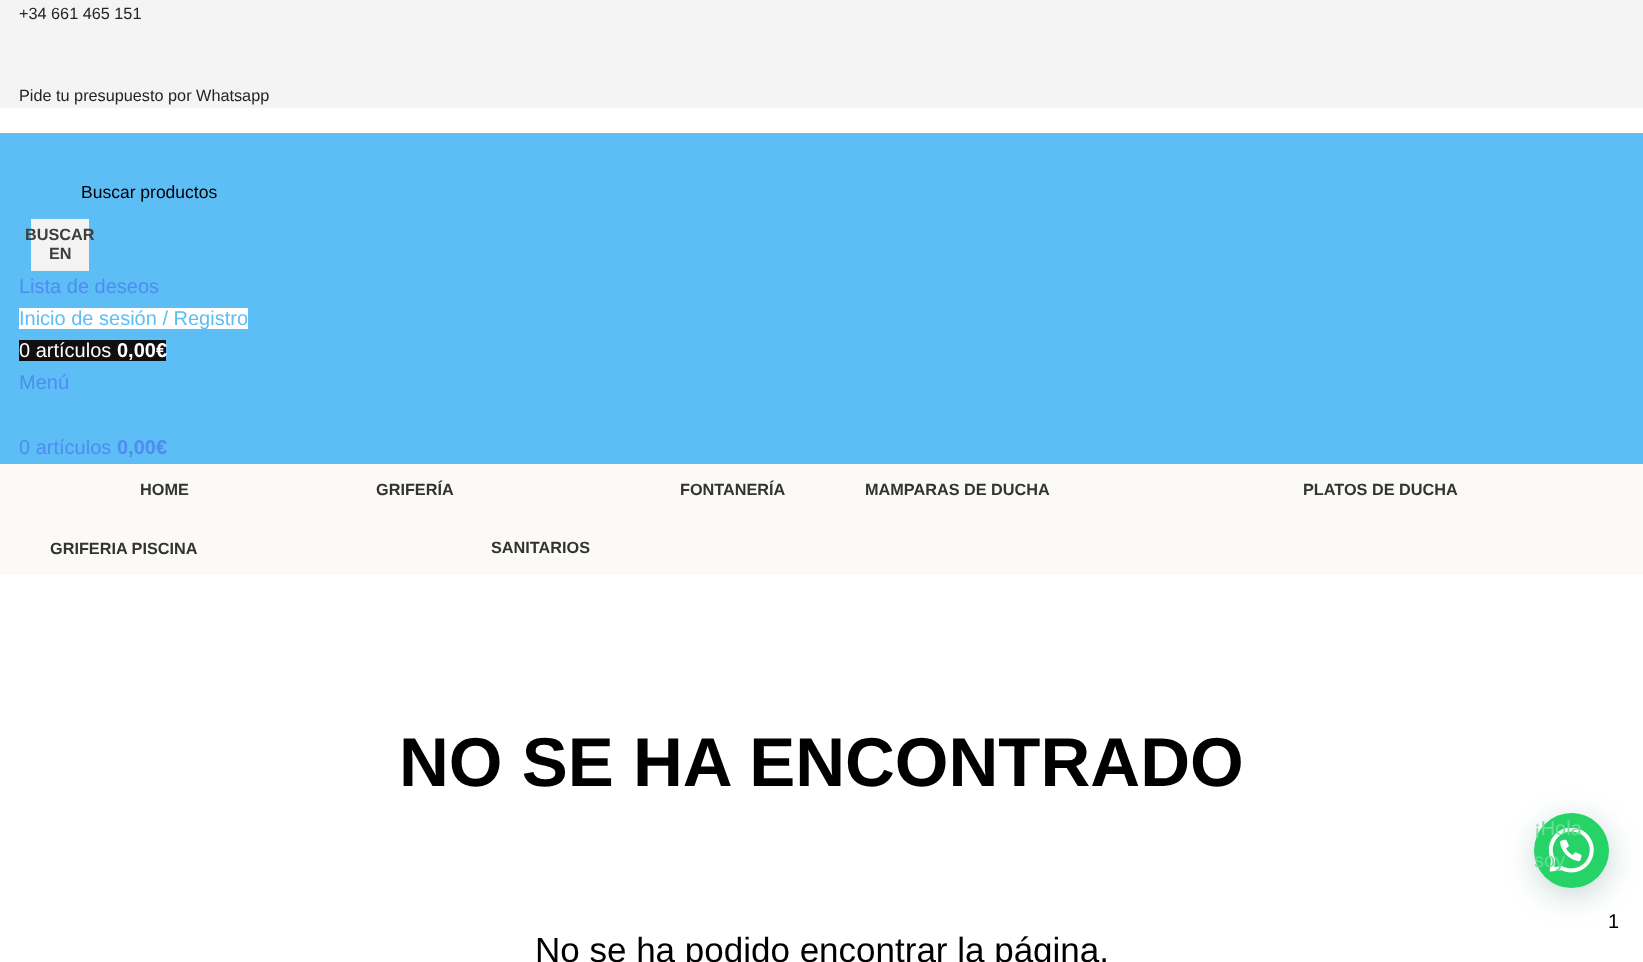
<svg xmlns="http://www.w3.org/2000/svg" width="1643" height="962">
<style>
.a{font:16.25px Liberation Sans;fill:#242424}
.b{font:17.5px Liberation Sans;fill:#000}
.c{font:bold 16.25px Liberation Sans;fill:#3e3e3e}
.d{font:20px Liberation Sans;fill:#4f8cf2}
.e{font:20px Liberation Sans;fill:#5dbdf5}
.f{font:20px Liberation Sans;fill:#fff}
.g{font:bold 20px Liberation Sans;fill:#fff}
.h{font:bold 20px Liberation Sans;fill:#4f8cf2}
.i{font:bold 16.25px Liberation Sans;fill:#333}
.j{font:bold 69px Liberation Sans;fill:#000}
.k{font:35px Liberation Sans;fill:#000}
.l{font:20px Liberation Sans;fill:#69e096}
.m{font:20px Liberation Sans;fill:#61df90}
.n{font:20px Liberation Sans;fill:#000}
</style>
<rect width="100%" height="100%" fill="#fff"/>
<path fill="#f4f4f4" d="M0 0h1643v108H0z"/>
<path fill="#5dbdf5" d="M0 133h1643v331H0z"/>
<path fill="#f3f3f3" d="M31 219h58v52H31z"/>
<path fill="#fff" d="M19 308h229v21H19z"/>
<path fill="#101010" d="M19 340h147v21H19z"/>
<path fill="#fbfaf7" d="M0 464h1643v111H0z"/>
<rect fill="#075e543d" filter="blur(15px)" x="1535" y="820" width="75" height="75" rx="37.5"/>
<circle fill="#25d366" cx="1571.5" cy="850.5" r="37.5"/>
<image href="1.png" x="1549" y="828" width="45" height="45"/>
<text class="a" x="19" y="19">+34 661 465 151</text>
<text class="a" x="19" y="101">Pide tu presupuesto por Whatsapp</text>
<text class="b" x="81" y="198">Buscar productos</text>
<text class="c" x="25" y="240">BUSCAR</text>
<text class="c" x="49" y="259">EN</text>
<text class="d" x="19" y="293">Lista de deseos</text>
<text class="e" x="19" y="325">Inicio de sesión / Registro</text>
<text class="f" x="19" y="357">0 artículos</text>
<text class="g" x="117" y="357">0,00€</text>
<text class="d" x="19" y="389">Menú</text>
<text class="d" x="19" y="454">0 artículos</text>
<text class="h" x="117" y="454">0,00€</text>
<text class="i" x="140" y="495">HOME</text>
<text class="i" x="376" y="495">GRIFERÍA</text>
<text class="i" x="680" y="495">FONTANERÍA</text>
<text class="i" x="865" y="495">MAMPARAS DE DUCHA</text>
<text class="i" x="1303" y="495">PLATOS DE DUCHA</text>
<text class="i" x="50" y="554">GRIFERIA PISCINA</text>
<text class="i" x="491" y="553">SANITARIOS</text>
<text class="j" x="399" y="786">NO SE HA ENCONTRADO</text>
<text class="k" x="535" y="962">No se ha podido encontrar la página.</text>
<text class="l" x="1534" y="835">¡Hola</text>
<text class="m" x="1534" y="867">soy</text>
<text class="n" x="1608" y="928">1</text>
</svg>
